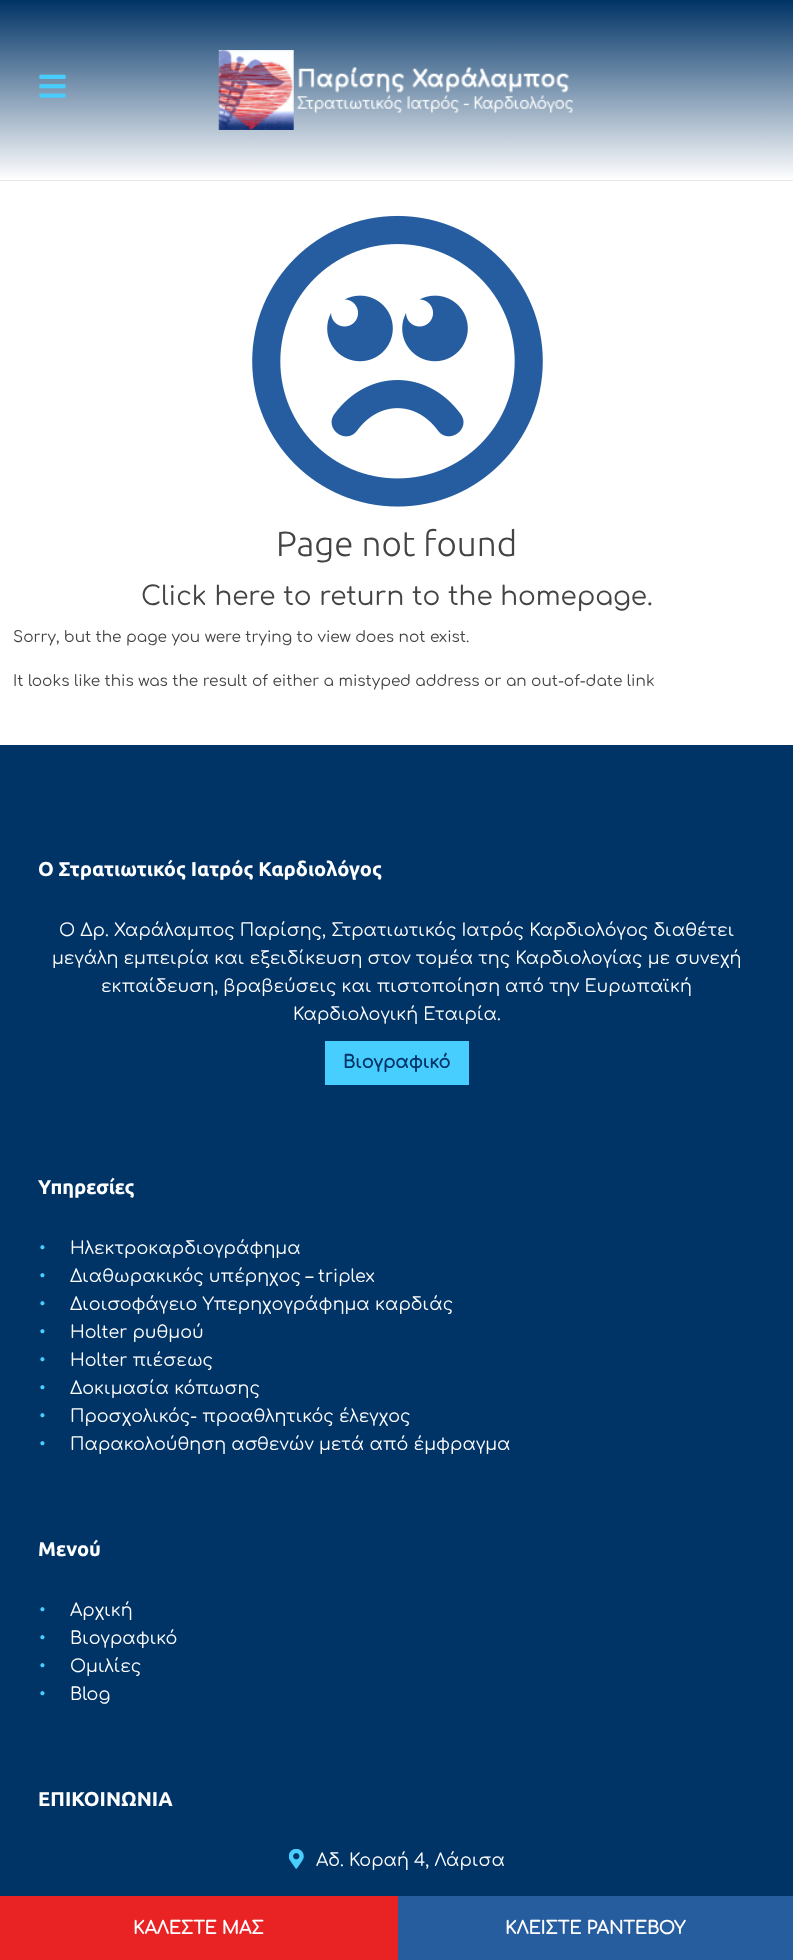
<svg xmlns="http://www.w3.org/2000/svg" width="793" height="1960">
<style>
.a{font:300 35px Ubuntu;fill:#444}
.b{font:26.25px Comfortaa;fill:#444}
.c{font:15.3px Comfortaa;fill:#444}
.d{font:bold 20px Ubuntu;fill:#fff}
.e{font:17.5px Comfortaa;fill:#fff}
.f{font:bold 17.5px Comfortaa;fill:#036}
.g{font:17.5px Comfortaa;fill:#48cdff}
.h{font:bold 17.5px Comfortaa;fill:#fff}
</style>
<defs>
<linearGradient id="g1" gradientUnits="userSpaceOnUse" x1="397" y1="0" x2="397" y2="180"><stop offset="0" stop-color="#036"/><stop offset="1" stop-color="#fff"/></linearGradient>
</defs>
<rect width="100%" height="100%" fill="#fff"/>
<path fill="url(#g1)" d="M0 0h793v178H0z"/>
<path fill="#e8e8e8" d="M0 180h793v1H0z"/>
<image href="1.png" x="39" y="74" width="27" height="24"/>
<image href="2.png" x="218" y="50" width="356" height="80"/>
<image href="3.png" x="252" y="215" width="291" height="292"/>
<path fill="#036" d="M0 745h793v1151H0z"/>
<path fill="#48cdff" d="M325 1041h144v44H325z"/>
<image href="4.png" x="289" y="1849" width="15" height="20"/>
<path fill="#e92224" d="M0 1896h398v64H0z"/>
<path fill="#265d9e" d="M398 1896h395v64H398z"/>
<text class="a" x="276" y="556">Page not found</text>
<text class="b" x="141" y="605">Click here to return to the homepage.</text>
<text class="c" x="13" y="642">Sorry, but the page you were trying to view does not exist.</text>
<text class="c" x="13" y="686">It looks like this was the result of either a mistyped address or an out-of-date link</text>
<text class="d" x="38" y="876">Ο Στρατιωτικός Ιατρός Καρδιολόγος</text>
<text class="e" x="59" y="936">O Δρ. Χαράλαμπος Παρίσης, Στρατιωτικός Ιατρός Καρδιολόγος διαθέτει</text>
<text class="e" x="52" y="964">μεγάλη εμπειρία και εξειδίκευση στον τομέα της Καρδιολογίας με συνεχή</text>
<text class="e" x="101" y="992">εκπαίδευση, βραβεύσεις και πιστοποίηση από την Ευρωπαϊκή</text>
<text class="e" x="293" y="1020">Καρδιολογική Εταιρία.</text>
<text class="f" x="343" y="1068">Βιογραφικό</text>
<text class="d" x="38" y="1194">Υπηρεσίες</text>
<text class="g" x="39" y="1254">•</text>
<text class="e" x="70" y="1254">Ηλεκτροκαρδιογράφημα</text>
<text class="g" x="39" y="1282">•</text>
<text class="e" x="70" y="1282">Διαθωρακικός υπέρηχος – triplex</text>
<text class="g" x="39" y="1310">•</text>
<text class="e" x="70" y="1310">Διοισοφάγειο Υπερηχογράφημα καρδιάς</text>
<text class="g" x="39" y="1338">•</text>
<text class="e" x="70" y="1338">Holter ρυθμού</text>
<text class="g" x="39" y="1366">•</text>
<text class="e" x="70" y="1366">Holter πιέσεως</text>
<text class="g" x="39" y="1394">•</text>
<text class="e" x="70" y="1394">Δοκιμασία κόπωσης</text>
<text class="g" x="39" y="1422">•</text>
<text class="e" x="70" y="1422">Προσχολικός- προαθλητικός έλεγχος</text>
<text class="g" x="39" y="1450">•</text>
<text class="e" x="70" y="1450">Παρακολούθηση ασθενών μετά από έμφραγμα</text>
<text class="d" x="38" y="1556">Μενού</text>
<text class="g" x="39" y="1616">•</text>
<text class="e" x="70" y="1616">Αρχική</text>
<text class="g" x="39" y="1644">•</text>
<text class="e" x="70" y="1644">Βιογραφικό</text>
<text class="g" x="39" y="1672">•</text>
<text class="e" x="70" y="1672">Ομιλίες</text>
<text class="g" x="39" y="1700">•</text>
<text class="e" x="70" y="1700">Blog</text>
<text class="d" x="38" y="1806">ΕΠΙΚΟΙΝΩΝΙΑ</text>
<text class="e" x="316" y="1866">Αδ. Κοραή 4, Λάρισα</text>
<text class="h" x="133" y="1934">ΚΑΛΕΣΤΕ ΜΑΣ</text>
<text class="h" x="505" y="1934">ΚΛΕΙΣΤΕ ΡΑΝΤΕΒΟΥ</text>
</svg>
